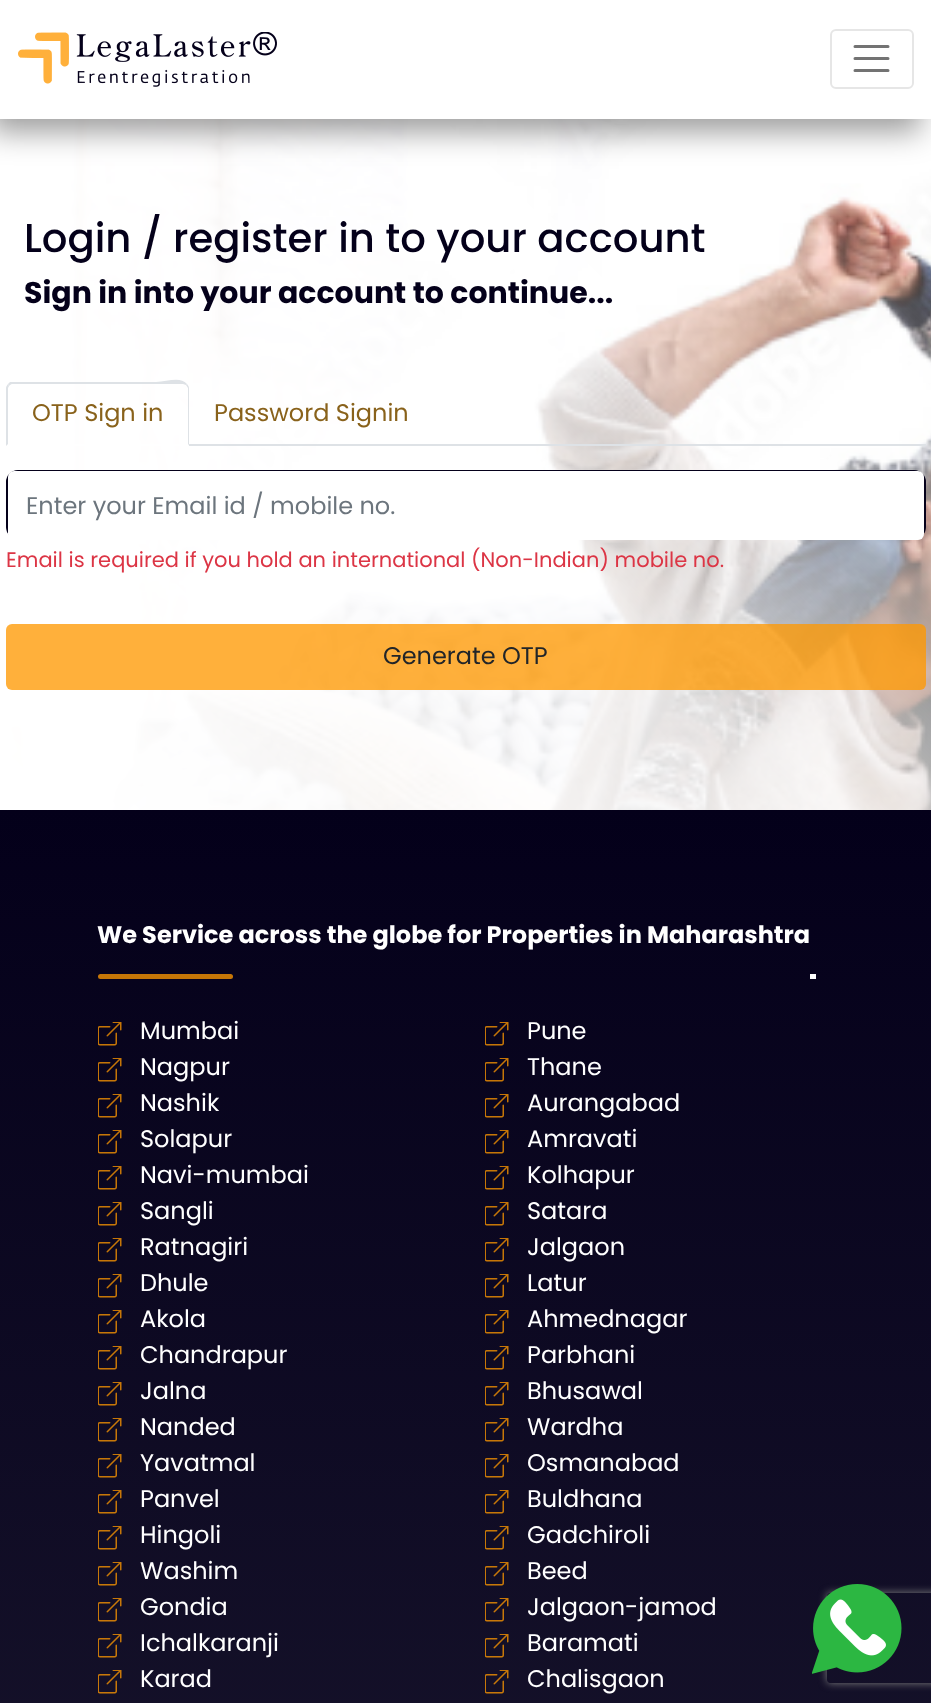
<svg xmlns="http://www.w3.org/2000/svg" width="931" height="1703">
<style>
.a{font:500 40.2px Poppins;fill:#04001a}
.b{font:bold 30px Poppins;fill:#04001a}
.c{font:24px Poppins;fill:#89621b}
.d{font:24px Poppins;fill:#6c757d}
.e{font:21px Poppins;fill:#dc3545}
.f{font:24px Poppins;fill:#212529}
.g{font:bold 24px Poppins;fill:#fff}
.h{font:24px Poppins;fill:#fff}
</style>
<defs>
<linearGradient id="g1" gradientUnits="userSpaceOnUse" x1="466" y1="810" x2="466" y2="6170"><stop offset="0" stop-color="#04001a"/><stop offset="1" stop-color="#615f6f"/></linearGradient>
<clipPath id="clip1"><path d="M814 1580h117v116h-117zm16 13h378c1.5 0 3 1.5 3 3v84c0 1.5-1.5 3-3 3h-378c-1.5 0-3-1.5-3-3v-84c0-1.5 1.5-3 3-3z" clip-rule="evenodd"/></clipPath>
</defs>
<rect width="100%" height="100%" fill="#fff"/>
<image href="2.png" x="0" y="119" width="931" height="691"/>
<path fill="#00000063" filter="blur(15px)" d="M-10 14h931v118H-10z"/>
<path fill="#fff" d="M0 0h931v119H0z"/>
<image href="1.png" x="18" y="32" width="259" height="55"/>
<rect fill="none" stroke="#e6e6e6" stroke-width="2" x="831" y="30" width="82" height="58" rx="5"/>
<path fill="none" stroke="#737373" stroke-width="3" stroke-linecap="round" d="M855 46.5h33m-33 12h33m-33 12h33"/>
<path fill="#dee2e6" d="M189 444h737v2H189z"/>
<path fill="#dee2e6" d="M12 384c-1 0-2 1-3 2l-1-2l2-2h146c11 0 24-6 31 2l-1 1l-3-1z"/>
<path fill="#dee2e6" d="M189 446v-58c0-1-1-3-2-4l-1 1l2 3v56z"/>
<path fill="#fff" d="M189 446h-183l2-2h180z"/>
<path fill="#dee2e6" d="M6 446l2-2v-56l1-2l-1-2c-1 1-2 3-2 4z"/>
<rect fill="none" stroke="#04001a" stroke-width="2" x="7" y="471" width="918" height="67" rx="11"/>
<rect fill="#fff" x="8" y="471" width="916" height="69" rx="6"/>
<rect fill="#ff9800c4" x="6" y="624" width="920" height="66" rx="6"/>
<path fill="url(#g1)" d="M0 810h931v893H0z"/>
<rect fill="#c67607" x="98" y="974" width="135" height="5" rx="2.5"/>
<path fill="#fff" d="M810 974h6v5H810z"/>
<image href="3.png" x="98" y="1022" width="24" height="24"/>
<image href="3.png" x="485" y="1022" width="24" height="24"/>
<image href="4.png" x="98" y="1058" width="24" height="24"/>
<image href="4.png" x="485" y="1058" width="24" height="24"/>
<image href="5.png" x="98" y="1094" width="24" height="24"/>
<image href="5.png" x="485" y="1094" width="24" height="24"/>
<image href="6.png" x="98" y="1130" width="24" height="24"/>
<image href="6.png" x="485" y="1130" width="24" height="24"/>
<image href="7.png" x="98" y="1166" width="24" height="24"/>
<image href="7.png" x="485" y="1166" width="24" height="24"/>
<image href="8.png" x="98" y="1202" width="24" height="24"/>
<image href="8.png" x="485" y="1202" width="24" height="24"/>
<image href="9.png" x="98" y="1238" width="24" height="24"/>
<image href="9.png" x="485" y="1238" width="24" height="24"/>
<image href="10.png" x="98" y="1274" width="24" height="24"/>
<image href="10.png" x="485" y="1274" width="24" height="24"/>
<image href="11.png" x="98" y="1310" width="24" height="24"/>
<image href="11.png" x="485" y="1310" width="24" height="24"/>
<image href="12.png" x="98" y="1346" width="24" height="24"/>
<image href="12.png" x="485" y="1346" width="24" height="24"/>
<image href="13.png" x="98" y="1382" width="24" height="24"/>
<image href="13.png" x="485" y="1382" width="24" height="24"/>
<image href="14.png" x="98" y="1418" width="24" height="24"/>
<image href="14.png" x="485" y="1418" width="24" height="24"/>
<image href="15.png" x="98" y="1454" width="24" height="24"/>
<image href="15.png" x="485" y="1454" width="24" height="24"/>
<image href="16.png" x="98" y="1490" width="24" height="24"/>
<image href="16.png" x="485" y="1490" width="24" height="24"/>
<image href="17.png" x="98" y="1526" width="24" height="24"/>
<image href="17.png" x="485" y="1526" width="24" height="24"/>
<image href="18.png" x="98" y="1562" width="24" height="24"/>
<image href="18.png" x="485" y="1562" width="24" height="24"/>
<image href="19.png" x="98" y="1598" width="24" height="24"/>
<image href="19.png" x="485" y="1598" width="24" height="24"/>
<image href="20.png" x="98" y="1634" width="24" height="24"/>
<image href="20.png" x="485" y="1634" width="24" height="24"/>
<image href="21.png" x="98" y="1670" width="24" height="24"/>
<image href="21.png" x="485" y="1670" width="24" height="24"/>
<g clip-path="url(#clip1)">
<rect fill="#808080" filter="blur(4px)" x="827" y="1593" width="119" height="90" rx="3"/>
</g>
<image href="22.png" x="812" y="1584" width="90" height="90"/>
<text class="a" x="24" y="252">Login / register in to your account</text>
<text class="b" x="24" y="303">Sign in into your account to continue...</text>
<text class="c" x="32" y="421">OTP Sign in</text>
<text class="c" x="214" y="421">Password Signin</text>
<text class="d" x="26" y="514">Enter your Email id / mobile no.</text>
<text class="e" x="6" y="567">Email is required if you hold an international (Non-Indian) mobile no.</text>
<text class="f" x="383" y="664">Generate OTP</text>
<text class="g" x="97" y="943">We Service across the globe for Properties in Maharashtra</text>
<text class="h" x="140" y="1039">Mumbai</text>
<text class="h" x="527" y="1039">Pune</text>
<text class="h" x="140" y="1075">Nagpur</text>
<text class="h" x="527" y="1075">Thane</text>
<text class="h" x="140" y="1111">Nashik</text>
<text class="h" x="527" y="1111">Aurangabad</text>
<text class="h" x="140" y="1147">Solapur</text>
<text class="h" x="527" y="1147">Amravati</text>
<text class="h" x="140" y="1183">Navi-mumbai</text>
<text class="h" x="527" y="1183">Kolhapur</text>
<text class="h" x="140" y="1219">Sangli</text>
<text class="h" x="527" y="1219">Satara</text>
<text class="h" x="140" y="1255">Ratnagiri</text>
<text class="h" x="527" y="1255">Jalgaon</text>
<text class="h" x="140" y="1291">Dhule</text>
<text class="h" x="527" y="1291">Latur</text>
<text class="h" x="140" y="1327">Akola</text>
<text class="h" x="527" y="1327">Ahmednagar</text>
<text class="h" x="140" y="1363">Chandrapur</text>
<text class="h" x="527" y="1363">Parbhani</text>
<text class="h" x="140" y="1399">Jalna</text>
<text class="h" x="527" y="1399">Bhusawal</text>
<text class="h" x="140" y="1435">Nanded</text>
<text class="h" x="527" y="1435">Wardha</text>
<text class="h" x="140" y="1471">Yavatmal</text>
<text class="h" x="527" y="1471">Osmanabad</text>
<text class="h" x="140" y="1507">Panvel</text>
<text class="h" x="527" y="1507">Buldhana</text>
<text class="h" x="140" y="1543">Hingoli</text>
<text class="h" x="527" y="1543">Gadchiroli</text>
<text class="h" x="140" y="1579">Washim</text>
<text class="h" x="527" y="1579">Beed</text>
<text class="h" x="140" y="1615">Gondia</text>
<text class="h" x="527" y="1615">Jalgaon-jamod</text>
<text class="h" x="140" y="1651">Ichalkaranji</text>
<text class="h" x="527" y="1651">Baramati</text>
<text class="h" x="140" y="1687">Karad</text>
<text class="h" x="527" y="1687">Chalisgaon</text>
</svg>
